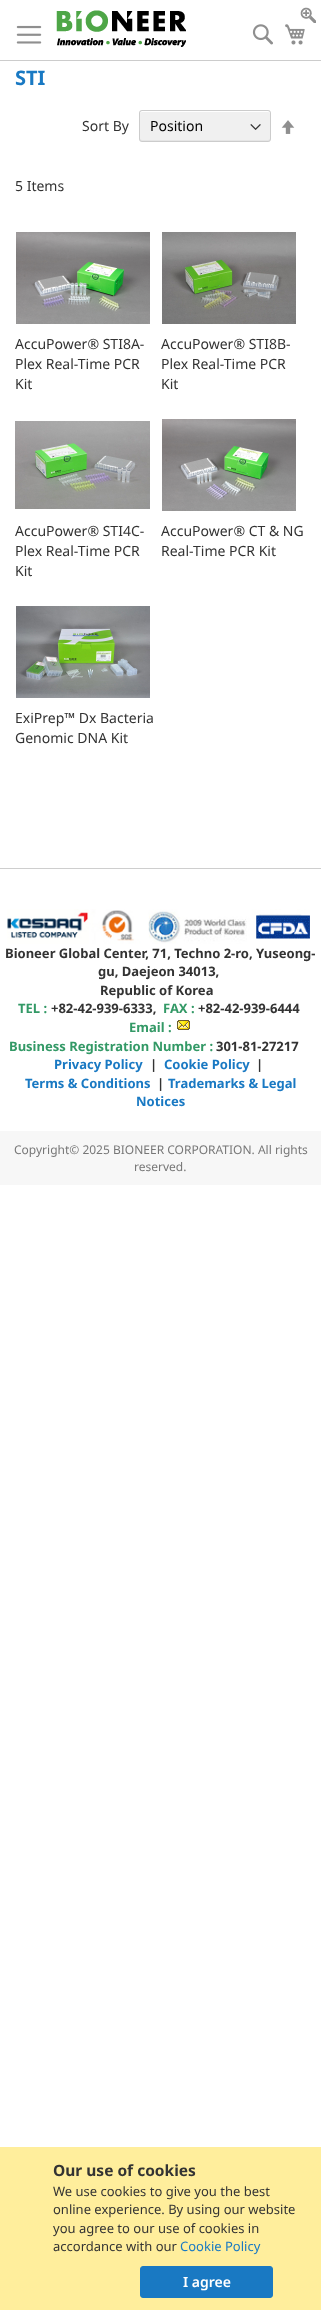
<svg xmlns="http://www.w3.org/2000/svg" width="321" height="2310">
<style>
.a{font:bold 20px Noto Sans;fill:#1979c3}
.b{font:14px Noto Sans;fill:#333}
.c{font:14px Noto Sans;fill:#000}
.d{font:bold 13px Noto Sans;fill:#333}
.e{font:bold 13px Noto Sans;fill:#396}
.f{font:bold 13px Noto Sans;fill:#1979c3}
.g{font:12px Noto Sans;fill:#777}
.h{font:bold 15.5px Noto Sans;fill:#333}
.i{font:13px Noto Sans;fill:#333}
.j{font:13px Noto Sans;fill:#1979c3}
.k{font:600 14px Noto Sans;fill:#fff}
</style>
<rect width="100%" height="100%" fill="#fff"/>
<path fill="#ccc" d="M0 60h321v1H0z"/>
<image href="1.png" x="16" y="25" width="26" height="19"/>
<image href="2.png" x="56" y="10" width="130" height="37"/>
<image href="3.png" x="300" y="7" width="16" height="16"/>
<image href="4.png" x="252" y="24" width="21" height="21"/>
<image href="5.png" x="285" y="24" width="20" height="21"/>
<rect fill="#f0f0f0" x="139" y="110" width="132" height="32" rx="3"/>
<image href="6.png" x="250" y="124" width="11" height="6"/>
<path fill="#e5e5e5" d="M140 138c0 1 0 3 2 3h126c2 0 2-2 2-3c0 1-1 2-2 2h-126c-1 0-2-1-2-2z"/>
<path fill="#fff" d="M142 112h126c1 0 2 1 2 2c0-1 0-3-2-3h-126c-2 0-2 2-2 3c0-1 1-2 2-2z"/>
<rect fill="none" stroke="#ccc" x="139.5" y="110.5" width="131" height="31" rx="2.5"/>
<image href="7.png" x="281" y="120" width="14" height="14"/>
<image href="8.png" x="16" y="232" width="134" height="92"/>
<image href="9.png" x="162" y="232" width="134" height="92"/>
<image href="10.png" x="15" y="421" width="135" height="88"/>
<image href="11.png" x="162" y="419" width="134" height="92"/>
<image href="12.png" x="16" y="606" width="134" height="92"/>
<path fill="#cecece" d="M0 868h321v1H0z"/>
<image href="13.png" x="7" y="909" width="303" height="35"/>
<image href="14.png" x="177" y="1020" width="13" height="10"/>
<path fill="#f7f7f7" d="M0 1131h321v54H0z"/>
<path fill="#ffee9c" d="M0 2147h321v163H0z"/>
<rect fill="#1979c3" stroke="#1979c3" x="140.5" y="2266.5" width="132" height="31" rx="2.5"/>
<text class="a" x="15" y="85">STI</text>
<text class="b" x="82" y="131">Sort By</text>
<text class="c" x="150" y="131">Position</text>
<text class="b" x="15" y="191">5 Items</text>
<text class="b" x="15" y="349">AccuPower® STI8A-</text>
<text class="b" x="15" y="369">Plex Real-Time PCR</text>
<text class="b" x="15" y="389">Kit</text>
<text class="b" x="161" y="349">AccuPower® STI8B-</text>
<text class="b" x="161" y="369">Plex Real-Time PCR</text>
<text class="b" x="161" y="389">Kit</text>
<text class="b" x="15" y="536">AccuPower® STI4C-</text>
<text class="b" x="15" y="556">Plex Real-Time PCR</text>
<text class="b" x="15" y="576">Kit</text>
<text class="b" x="161" y="536">AccuPower® CT &amp; NG</text>
<text class="b" x="161" y="556">Real-Time PCR Kit</text>
<text class="b" x="15" y="723">ExiPrep™ Dx Bacteria</text>
<text class="b" x="15" y="743">Genomic DNA Kit</text>
<text class="d" x="5" y="958">Bioneer Global Center, 71, Techno 2-ro, Yuseong-</text>
<text class="d" x="98" y="976">gu, Daejeon 34013,</text>
<text class="d" x="100" y="995">Republic of Korea</text>
<text class="e" x="18" y="1013">TEL :</text>
<text class="d" x="51" y="1013">+82-42-939-6333,</text>
<text class="e" x="163" y="1013">FAX :</text>
<text class="d" x="198" y="1013">+82-42-939-6444</text>
<text class="e" x="129" y="1032">Email :</text>
<text class="e" x="9" y="1051">Business Registration Number :</text>
<text class="d" x="216" y="1051">301-81-27217</text>
<text class="f" x="54" y="1069">Privacy Policy</text>
<text class="d" x="150" y="1069">|</text>
<text class="f" x="164" y="1069">Cookie Policy</text>
<text class="d" x="256" y="1069">|</text>
<text class="f" x="25" y="1088">Terms &amp; Conditions</text>
<text class="d" x="157" y="1088">|</text>
<text class="f" x="168" y="1088">Trademarks &amp; Legal</text>
<text class="f" x="136" y="1106">Notices</text>
<text class="g" x="14" y="1154">Copyright© 2025 BIONEER CORPORATION. All rights</text>
<text class="g" x="134" y="1171">reserved.</text>
<text class="h" x="53" y="2176">Our use of cookies</text>
<text class="i" x="53" y="2196">We use cookies to give you the best</text>
<text class="i" x="53" y="2214">online experience. By using our website</text>
<text class="i" x="53" y="2233">you agree to our use of cookies in</text>
<text class="i" x="53" y="2251">accordance with our</text>
<text class="j" x="180" y="2251">Cookie Policy</text>
<text class="k" x="183" y="2287">I agree</text>
</svg>
